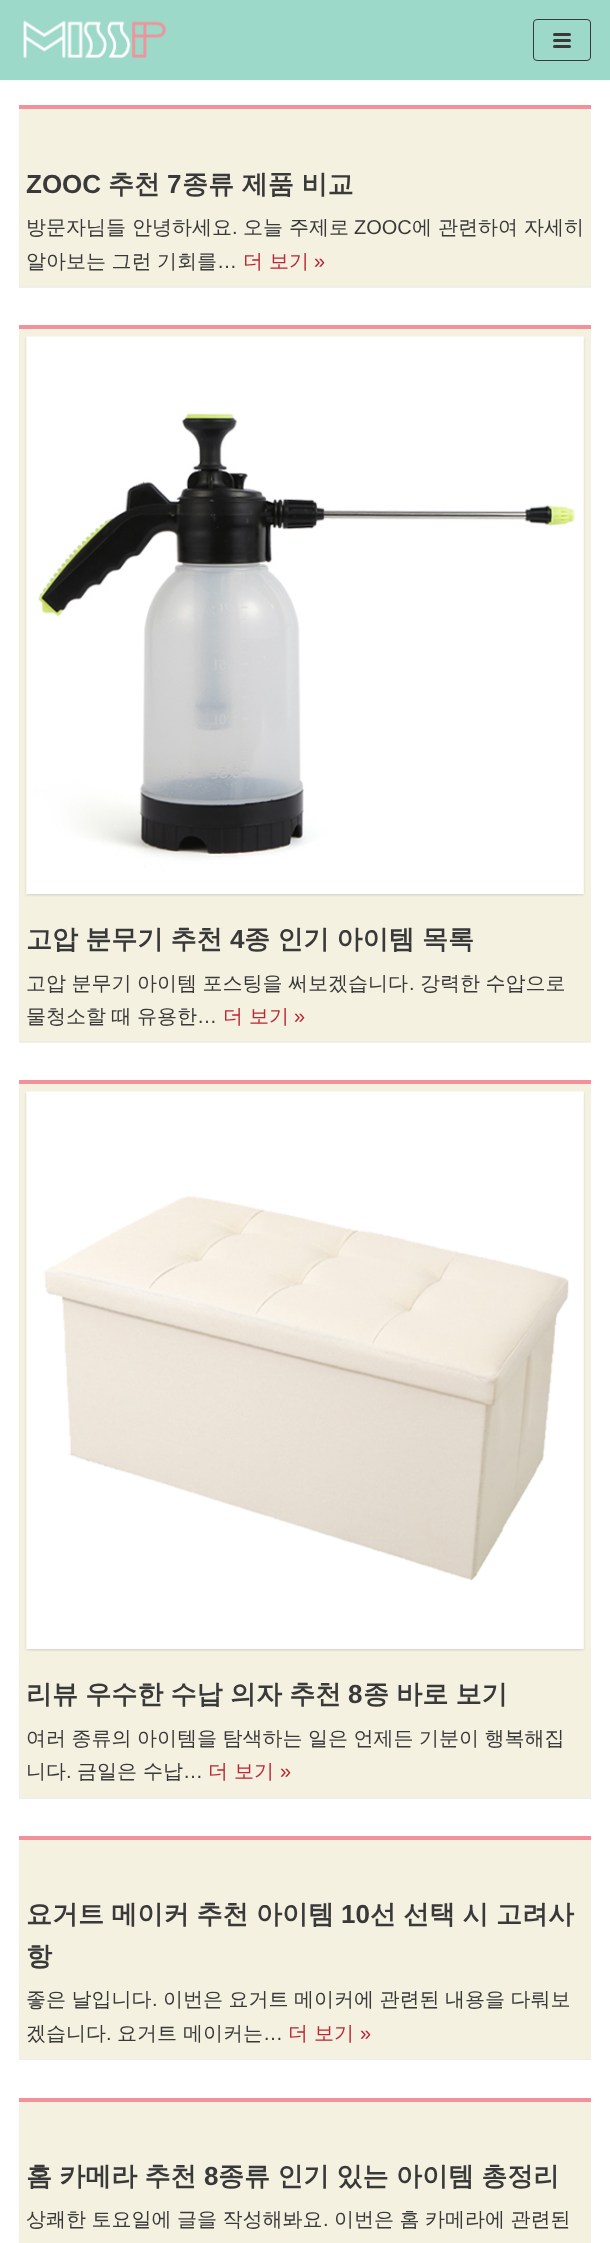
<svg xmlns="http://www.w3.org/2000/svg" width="610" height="2243">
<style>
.a{font:bold 26px Liberation Sans;fill:#393939}
.b{font:bold 26px WenQuanYi Zen Hei;fill:#393939}
.c{font:500 20px WenQuanYi Zen Hei;fill:#393939}
.d{font:20px Liberation Sans;fill:#393939}
.e{font:500 20px WenQuanYi Zen Hei;fill:#ba2734}
.f{font:20px Liberation Sans;fill:#ba2734}
</style>
<rect width="100%" height="100%" fill="#fff"/>
<path fill="#0000001a" filter="blur(2px)" d="M0 -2h610v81H0z"/>
<path fill="#9cd9c8" d="M0 0h610v80H0z"/>
<image href="1.png" x="23" y="20" width="143" height="38"/>
<rect fill="none" stroke="#393939" x="533.5" y="19.5" width="57" height="41" rx="3.5"/>
<rect fill="#393939" x="553" y="33" width="18" height="3" rx="1.5"/>
<rect fill="#393939" x="553" y="39" width="18" height="3" rx="1.5"/>
<rect fill="#393939" x="553" y="45" width="18" height="3" rx="1.5"/>
<path fill="#f5f1e1" d="M19 109h572v179H19z"/>
<path fill="#f29199" d="M19 105h572v4H19z"/>
<path fill="#ededed" d="M19 286h572v1H19z"/>
<path fill="#f5f1e1" d="M19 329h572v714H19z"/>
<path fill="#f29199" d="M19 325h572v4H19z"/>
<path fill="#ededed" d="M19 1041h572v1H19z"/>
<path fill="#0000001f" filter="blur(2px)" d="M29 340h552v553H29z"/>
<path fill="#0000001a" filter="blur(1px)" d="M26 338h558v557H26z"/>
<image href="2.png" x="26" y="336" width="558" height="558"/>
<path fill="#f5f1e1" d="M19 1084h572v714H19z"/>
<path fill="#f29199" d="M19 1080h572v4H19z"/>
<path fill="#ededed" d="M19 1798h572v1H19z"/>
<path fill="#0000001f" filter="blur(2px)" d="M29 1095h552v553H29z"/>
<path fill="#0000001a" filter="blur(1px)" d="M26 1093h558v557H26z"/>
<image href="3.png" x="26" y="1091" width="558" height="558"/>
<path fill="#f5f1e1" d="M19 1840h572v219H19z"/>
<path fill="#f29199" d="M19 1836h572v4H19z"/>
<path fill="#ededed" d="M19 2059h572v1H19z"/>
<path fill="#f5f1e1" d="M19 2102h572v141H19z"/>
<path fill="#f29199" d="M19 2098h572v4H19z"/>
<text class="a" x="26" y="193">ZOOC</text>
<text class="b" x="108" y="193">추천</text>
<text class="a" x="167" y="193">7</text>
<text class="b" x="182" y="193">종류 제품 비교</text>
<text class="c" x="26" y="234">방문자님들 안녕하세요</text>
<text class="d" x="232" y="234">.</text>
<text class="c" x="243" y="234">오늘 주제로</text>
<text class="d" x="354" y="234">ZOOC</text>
<text class="c" x="412" y="234">에 관련하여 자세히</text>
<text class="c" x="26" y="268" word-spacing="-0.5">알아보는 그런 기회를</text>
<text class="d" x="217" y="268">…</text>
<text class="e" x="243" y="268">더 보기</text>
<text class="f" x="314" y="268">»</text>
<text class="b" x="26" y="948" word-spacing="-0.5">고압 분무기 추천</text>
<text class="a" x="230" y="948">4</text>
<text class="b" x="244" y="948" word-spacing="-0.5">종 인기 아이템 목록</text>
<text class="c" x="26" y="990" word-spacing="-0.5">고압 분무기 아이템 포스팅을 써보겠습니다</text>
<text class="d" x="409" y="990">.</text>
<text class="c" x="420" y="990" word-spacing="-0.5">강력한 수압으로</text>
<text class="c" x="26" y="1023" word-spacing="-0.5">물청소할 때 유용한</text>
<text class="d" x="197" y="1023">…</text>
<text class="e" x="223" y="1023">더 보기</text>
<text class="f" x="294" y="1023">»</text>
<text class="b" x="26" y="1703" word-spacing="-0.5">리뷰 우수한 수납 의자 추천</text>
<text class="a" x="348" y="1703">8</text>
<text class="b" x="363" y="1703" word-spacing="-0.5">종 바로 보기</text>
<text class="c" x="26" y="1745" word-spacing="-0.5">여러 종류의 아이템을 탐색하는 일은 언제든 기분이 행복해집</text>
<text class="c" x="26" y="1778">니다</text>
<text class="d" x="66" y="1778">.</text>
<text class="c" x="77" y="1778">금일은 수납</text>
<text class="d" x="183" y="1778">…</text>
<text class="e" x="208" y="1778">더 보기</text>
<text class="f" x="280" y="1778">»</text>
<text class="b" x="26" y="1923" word-spacing="-0.5">요거트 메이커 추천 아이템</text>
<text class="a" x="341" y="1923">10</text>
<text class="b" x="370" y="1923" word-spacing="-0.5">선 선택 시 고려사</text>
<text class="b" x="26" y="1965">항</text>
<text class="c" x="26" y="2006" word-spacing="-0.5">좋은 날입니다</text>
<text class="d" x="152" y="2006">.</text>
<text class="c" x="163" y="2006" word-spacing="-0.5">이번은 요거트 메이커에 관련된 내용을 다뤄보</text>
<text class="c" x="26" y="2040">겠습니다</text>
<text class="d" x="106" y="2040">.</text>
<text class="c" x="117" y="2040">요거트 메이커는</text>
<text class="d" x="263" y="2040">…</text>
<text class="e" x="288" y="2040">더 보기</text>
<text class="f" x="360" y="2040">»</text>
<text class="b" x="26" y="2185" word-spacing="-0.5">홈 카메라 추천</text>
<text class="a" x="204" y="2185">8</text>
<text class="b" x="218" y="2185" word-spacing="-0.5">종류 인기 있는 아이템 총정리</text>
<text class="c" x="26" y="2226" word-spacing="-0.5">상쾌한 토요일에 글을 작성해봐요</text>
<text class="d" x="323" y="2226">.</text>
<text class="c" x="334" y="2226" word-spacing="-0.5">이번은 홈 카메라에 관련된</text>
</svg>
